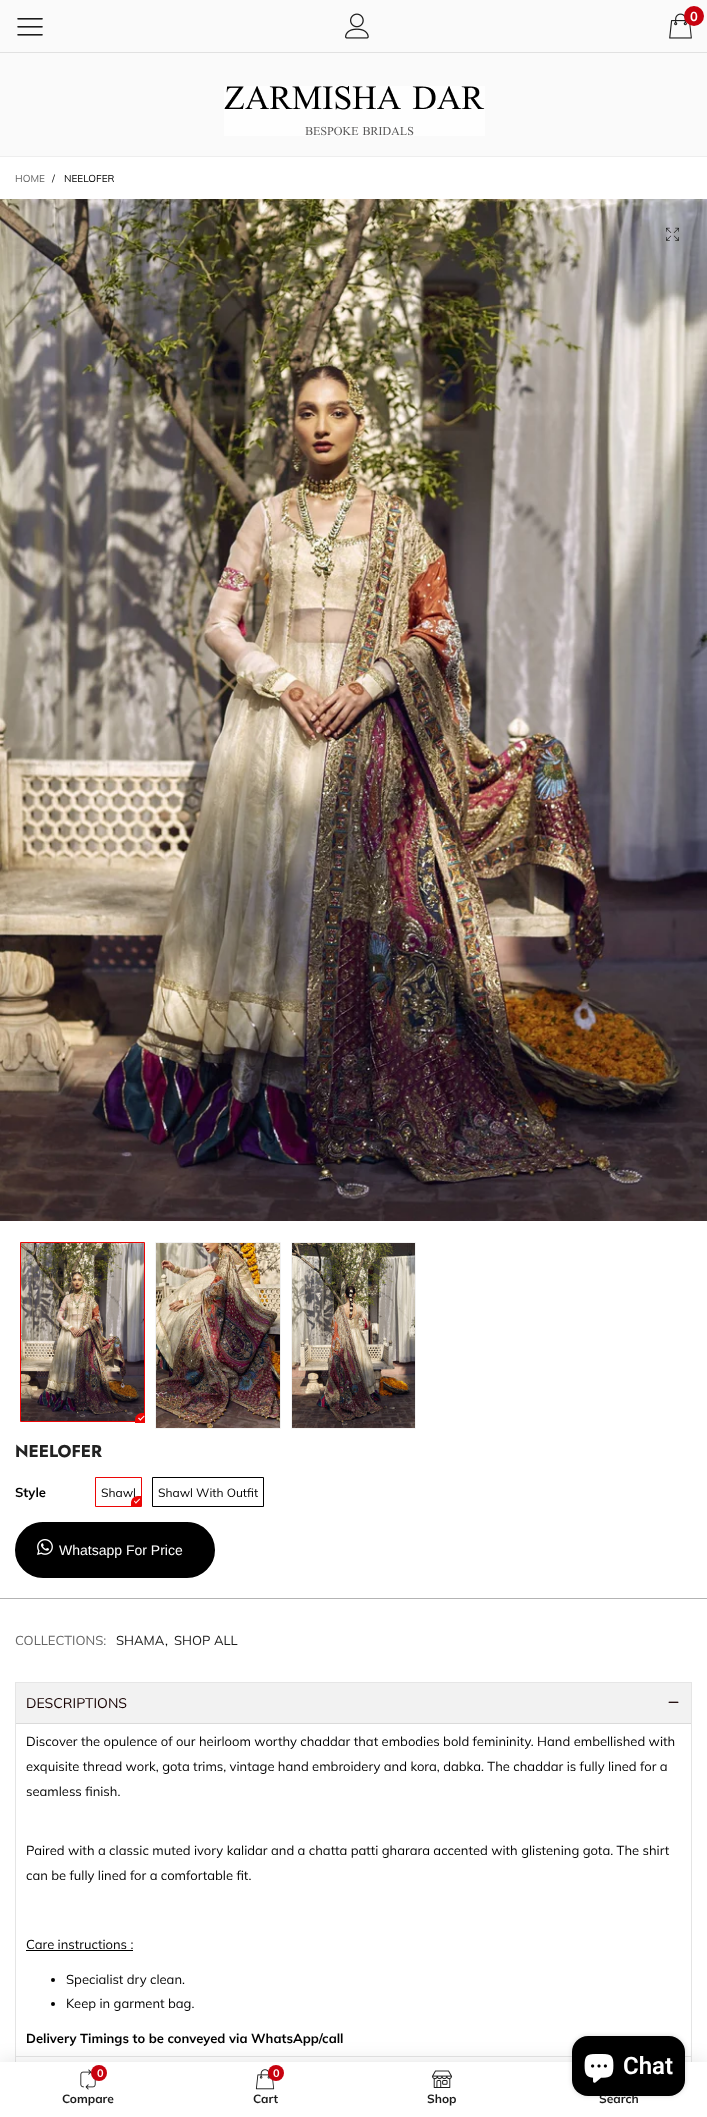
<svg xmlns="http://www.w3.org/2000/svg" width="707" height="2117">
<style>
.a{font:bold 13px Muli;fill:#fff}
.b{font:10px Muli;fill:#666}
.c{font:10px Muli;fill:#000}
.d{font:bold 17px Jost;fill:#222}
.e{font:bold 13px Muli;fill:#000}
.f{font:12px Muli;fill:#000}
.g{font:14px Liberation Sans;fill:#fff}
.h{font:13px Muli;fill:#666}
.i{font:13px Muli;fill:#1c1c1c}
.j{font:13px Muli;fill:#000}
.k{font:14px Muli;fill:#160101}
.l{font:bold 11px Muli;letter-spacing:-1px;fill:#fff}
.m{font:bold 12px Muli;fill:#1c1c1c}
.n{font:600 24px Roboto;fill:#fff}
</style>
<rect width="100%" height="100%" fill="#fff"/>
<path fill="#fafafa" d="M0 0h707v156H0z"/>
<path fill="#eee" d="M0 156h707v1H0z"/>
<image href="1.png" x="17" y="18" width="26" height="18"/>
<image href="2.png" x="345" y="13" width="24" height="26"/>
<image href="3.png" x="669" y="13" width="23" height="26"/>
<circle fill="#c7020f" cx="694" cy="16" r="10"/>
<path fill="#e1e1e1" d="M0 52h707v1H0z"/>
<image href="4.png" x="224" y="86" width="261" height="50"/>
<image href="5.png" x="0" y="199" width="707" height="1022"/>
<image href="6.png" x="666" y="227" width="13" height="14"/>
<path fill="none" stroke="#ec0606" d="M20.5 1242.5h124v179H20.5z"/>
<image href="7.png" x="21" y="1243" width="123" height="178"/>
<path fill="#ec0606" d="M142 1413h3v10h-10v-3c0-4 3-7 7-7z"/>
<path fill="#fff" d="M139.5 1420l4.5-4.5l.5 1l-4 4z"/>
<path fill="#fff" d="M138 1418.5l1-1l2 2.5l-.5 .5z"/>
<path fill="none" stroke="#f2f2f2" d="M155.5 1242.5h125v186H155.5z"/>
<image href="8.png" x="156" y="1243" width="124" height="185"/>
<path fill="none" stroke="#f2f2f2" d="M291.5 1242.5h124v186H291.5z"/>
<image href="9.png" x="292" y="1243" width="123" height="185"/>
<path fill="none" stroke="#ec0606" d="M95.5 1477.5h46v29H95.5z"/>
<path fill="none" stroke="#000" d="M152.5 1477.5h111v29H152.5z"/>
<rect fill="#000" stroke="#000" stroke-width="2" x="16" y="1523" width="198" height="54" rx="27"/>
<image href="10.png" x="37" y="1539" width="16" height="16"/>
<path fill="#b3b3b3" d="M0 1598h707v1H0z"/>
<path fill="#e6e6e6" d="M15 1682h677l-1 1h-675z"/>
<path fill="#0000001a" d="M692 1682v416h-1v-415z"/>
<path fill="#0000001a" d="M15 2098v-416l1 1v415z"/>
<path fill="#f2f2f2" d="M16 1683h675v40H16z"/>
<path fill="#dadada" d="M16 1723h675v1H16z"/>
<image href="11.png" x="668" y="1701" width="11" height="2"/>
<path fill="#e6e6e6" d="M16 2056h675v1H16z"/>
<path fill="#000" d="M26 1950h107v1H26z"/>
<circle fill="#000" cx="53" cy="1980" r="2"/>
<circle fill="#000" cx="53" cy="2004" r="2"/>
<path fill="#0000001a" filter="blur(9.5px)" d="M0 2061h707v55H0z"/>
<path fill="#fff" d="M0 2062h707v55H0z"/>
<rect fill="#00000026" filter="blur(2.5px)" x="572" y="2036" width="113" height="60" rx="16"/>
<image href="13.png" x="80" y="2069" width="16" height="21"/>
<circle fill="#c7020f" cx="99" cy="2073" r="8"/>
<image href="14.png" x="255" y="2069" width="20" height="21"/>
<circle fill="#c7020f" cx="276" cy="2073" r="8"/>
<image href="15.png" x="432" y="2070" width="20" height="18"/>
<text class="a" x="690" y="21">0</text>
<text class="b" x="15" y="182">HOME</text>
<text class="c" x="52" y="182">/</text>
<text class="c" x="64" y="182">NEELOFER</text>
<text class="d" x="15" y="1457">NEELOFER</text>
<text class="e" x="15" y="1497">Style</text>
<text class="f" x="101" y="1497">Shawl</text>
<path fill="#ec0606" d="M138 1496h3v10h-10v-3c0-4 3-7 7-7z"/>
<path fill="#fff" d="M135 1503l4.5-4.5l.5 1l-4 4z"/>
<path fill="#fff" d="M134 1501.5l.5-1l2 2.5l-.5 .5z"/>
<text class="f" x="158" y="1497">Shawl With Outfit</text>
<text class="g" x="59" y="1555">Whatsapp For Price</text>
<text class="h" x="15" y="1645">COLLECTIONS:</text>
<text class="i" x="116" y="1645">SHAMA</text>
<text class="j" x="165" y="1645">,</text>
<text class="i" x="174" y="1645">SHOP ALL</text>
<text class="k" x="26" y="1708">DESCRIPTIONS</text>
<text class="j" x="26" y="1746">Discover the opulence of our heirloom worthy chaddar that embodies bold femininity. Hand embellished with</text>
<text class="j" x="26" y="1771">exquisite thread work, gota trims, vintage hand embroidery and kora, dabka. The chaddar is fully lined for a</text>
<text class="j" x="26" y="1796">seamless finish.</text>
<text class="j" x="26" y="1855">Paired with a classic muted ivory kalidar and a chatta patti gharara accented with glistening gota. The shirt</text>
<text class="j" x="26" y="1880">can be fully lined for a comfortable fit.</text>
<text class="j" x="26" y="1949">Care instructions :</text>
<text class="j" x="66" y="1984">Specialist dry clean.</text>
<text class="j" x="66" y="2008">Keep in garment bag.</text>
<text class="e" x="26" y="2043">Delivery Timings to be conveyed via WhatsApp/call</text>
<text class="l" x="97" y="2077">0</text>
<text class="m" x="62" y="2103">Compare</text>
<text class="l" x="273" y="2077">0</text>
<text class="m" x="253" y="2103">Cart</text>
<text class="m" x="427" y="2103">Shop</text>
<text class="m" x="599" y="2103">Search</text>
<rect fill="#000" x="572" y="2036" width="113" height="60" rx="16"/>
<text class="n" x="623" y="2074">Chat</text>
<image href="12.png" x="584" y="2054" width="30" height="29"/>
</svg>
